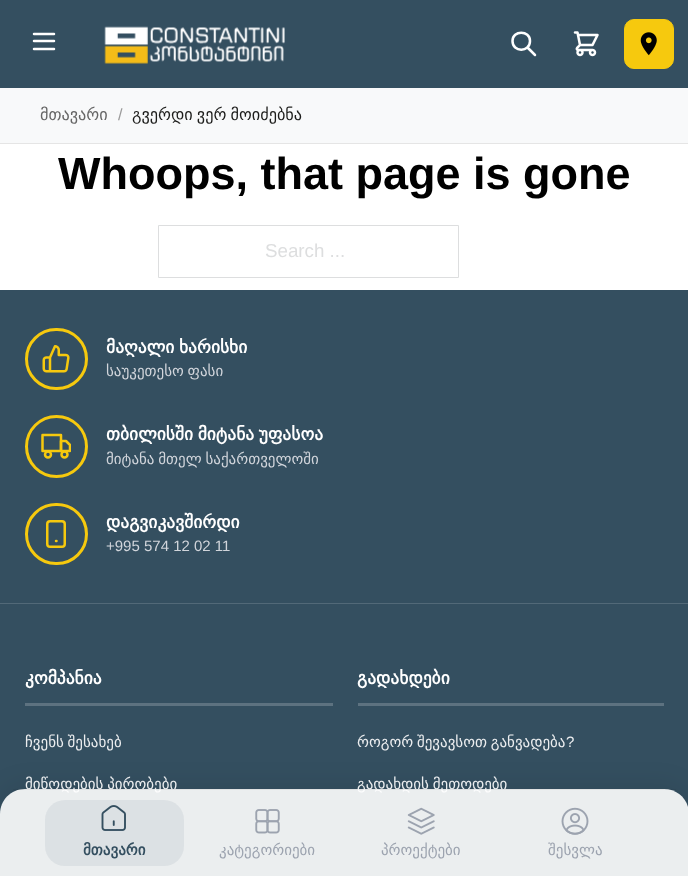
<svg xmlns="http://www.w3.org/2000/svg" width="688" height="876">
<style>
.a{font:16.25px DejaVu Sans;fill:#666}
.b{font:16.25px Liberation Sans;fill:#999}
.c{font:16.25px DejaVu Sans;fill:#1d1d1b}
.d{font:bold 45px Liberation Sans;fill:#000}
.e{font:18.75px Liberation Sans;fill:#dddedf}
.f{font:bold 17.5px DejaVu Sans;fill:#fff}
.g{font:15px DejaVu Sans;fill:#d1d5db}
.h{font:15px Liberation Sans;fill:#d1d5db}
.i{font:15px DejaVu Sans;fill:#ebedef}
.j{font:15px Liberation Sans;fill:#ebedef}
.k{font:bold 15px DejaVu Sans;fill:#344f60}
.l{font:15px DejaVu Sans;fill:#9ca3af}
</style>
<defs>
<clipPath id="clip1"><path d="M41 431h30v30H41z"/></clipPath>
<clipPath id="clip2"><path d="M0 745h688v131h-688zm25 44h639c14 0 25 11 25 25v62h-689v-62c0-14 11-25 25-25z" clip-rule="evenodd"/></clipPath>
</defs>
<rect width="100%" height="100%" fill="#fff"/>
<path fill="#344f60" d="M0 0h688v88H0z"/>
<path fill="none" stroke="#fff" stroke-width="2.5" stroke-linecap="round" stroke-linejoin="round" d="M34 34h20m-20 7h20m-20 8h20"/>
<image href="1.png" x="104" y="26" width="181" height="38"/>
<path fill="none" stroke="#fff" stroke-width="2.5" stroke-linecap="round" stroke-linejoin="round" d="M535 55l-7.5-7.5m2.5-6.5c0 11.5-17.5 11.5-17.5 0c0-11 17.5-11 17.5 0z"/>
<image href="2.png" x="573" y="31" width="26" height="26"/>
<rect fill="#f6c90e" stroke="#f6c90e" x="624.5" y="19.5" width="49" height="49" rx="9.5"/>
<image href="3.png" x="640" y="32" width="17" height="24"/>
<path fill="#f8f9fa" d="M0 88h688v55H0z"/>
<path fill="#e5e5e5" d="M0 143h688v1H0z"/>
<path fill="none" stroke="#dddedf" d="M158.5 225.5h300v52H158.5z"/>
<path fill="#344f60" d="M0 290h688v313H0z"/>
<path fill="#526978" d="M0 603h688v1H0z"/>
<rect fill="none" stroke="#f6c90e" stroke-width="3" x="26.5" y="329.5" width="60" height="59" rx="29.5"/>
<image href="4.png" x="42" y="345" width="28" height="28"/>
<circle fill="none" stroke="#f6c90e" stroke-width="3" cx="56.5" cy="446.5" r="30"/>
<path fill="none" stroke="#f6c90e" stroke-width="2.5" stroke-linecap="round" stroke-linejoin="round" d="M42.5 435h18.5v16h-18.5z"/>
<g clip-path="url(#clip1)">
<path fill="none" stroke="#f6c90e" stroke-width="2.5" stroke-linecap="round" stroke-linejoin="round" d="M61 441h5l4 4v6h-9z"/>
</g>
<circle fill="none" stroke="#f6c90e" stroke-width="2.5" cx="48" cy="454.5" r="3"/>
<circle fill="none" stroke="#f6c90e" stroke-width="2.5" cx="64.5" cy="454.5" r="3"/>
<rect fill="none" stroke="#f6c90e" stroke-width="3" x="26.5" y="504.5" width="60" height="59" rx="29.5"/>
<rect fill="none" stroke="#f6c90e" stroke-width="2.5" x="47.25" y="521.25" width="17.5" height="25.5" rx="2.75"/>
<path fill="none" stroke="#f6c90e" stroke-width="2.5" stroke-linecap="round" stroke-linejoin="round" d="M56 541h.5"/>
<path fill="#344f60" d="M0 604h688v272H0z"/>
<path fill="#5d7280" d="M25 703h308v3H25z"/>
<path fill="#5d7280" d="M358 703h306v3H358z"/>
<g clip-path="url(#clip2)">
<rect fill="#00000014" filter="blur(12.5px)" y="784" width="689" height="87" rx="25"/>
</g>
<text class="a" x="40" y="120">მთავარი</text>
<text class="b" x="118" y="120">/</text>
<text class="c" x="132" y="120" word-spacing="-1">გვერდი ვერ მოიძებნა</text>
<text class="d" x="58" y="189">Whoops, that page is gone</text>
<text class="e" x="265" y="257">Search ...</text>
<text class="f" x="106" y="353" word-spacing="-1">მაღალი ხარისხი</text>
<text class="g" x="106" y="376" word-spacing="-1">საუკეთესო ფასი</text>
<text class="f" x="106" y="440" word-spacing="-1">თბილისში მიტანა უფასოა</text>
<text class="g" x="106" y="464" word-spacing="-1">მიტანა მთელ საქართველოში</text>
<text class="f" x="106" y="528">დაგვიკავშირდი</text>
<text class="h" x="106" y="551">+995 574 12 02 11</text>
<text class="f" x="25" y="684">კომპანია</text>
<text class="i" x="25" y="747" word-spacing="-1">ჩვენს შესახებ</text>
<text class="i" x="25" y="789" word-spacing="-1">მიწოდების პირობები</text>
<text class="f" x="357" y="684">გადახდები</text>
<text class="i" x="357" y="747" word-spacing="-1">როგორ შევავსოთ განვადება</text>
<text class="j" x="566" y="747">?</text>
<text class="i" x="357" y="789" word-spacing="-1">გადახდის მეთოდები</text>
<path fill="#ffffffe6" d="M25 789h639c14 0 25 11 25 25v62h-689v-62c0-14 11-25 25-25z"/>
<path fill="#0000000d" d="M13 789h663v1H13z"/>
<rect fill="#344f6014" x="45" y="800" width="139" height="66" rx="20"/>
<image href="5.png" x="101" y="805" width="25" height="26"/>
<text class="k" x="83" y="855">მთავარი</text>
<image href="6.png" x="255" y="809" width="25" height="25"/>
<text class="l" x="219" y="855">კატეგორიები</text>
<image href="7.png" x="407" y="807" width="28" height="28"/>
<text class="l" x="381" y="855">პროექტები</text>
<image href="8.png" x="561" y="807" width="28" height="28"/>
<text class="l" x="548" y="855">შესვლა</text>
</svg>
